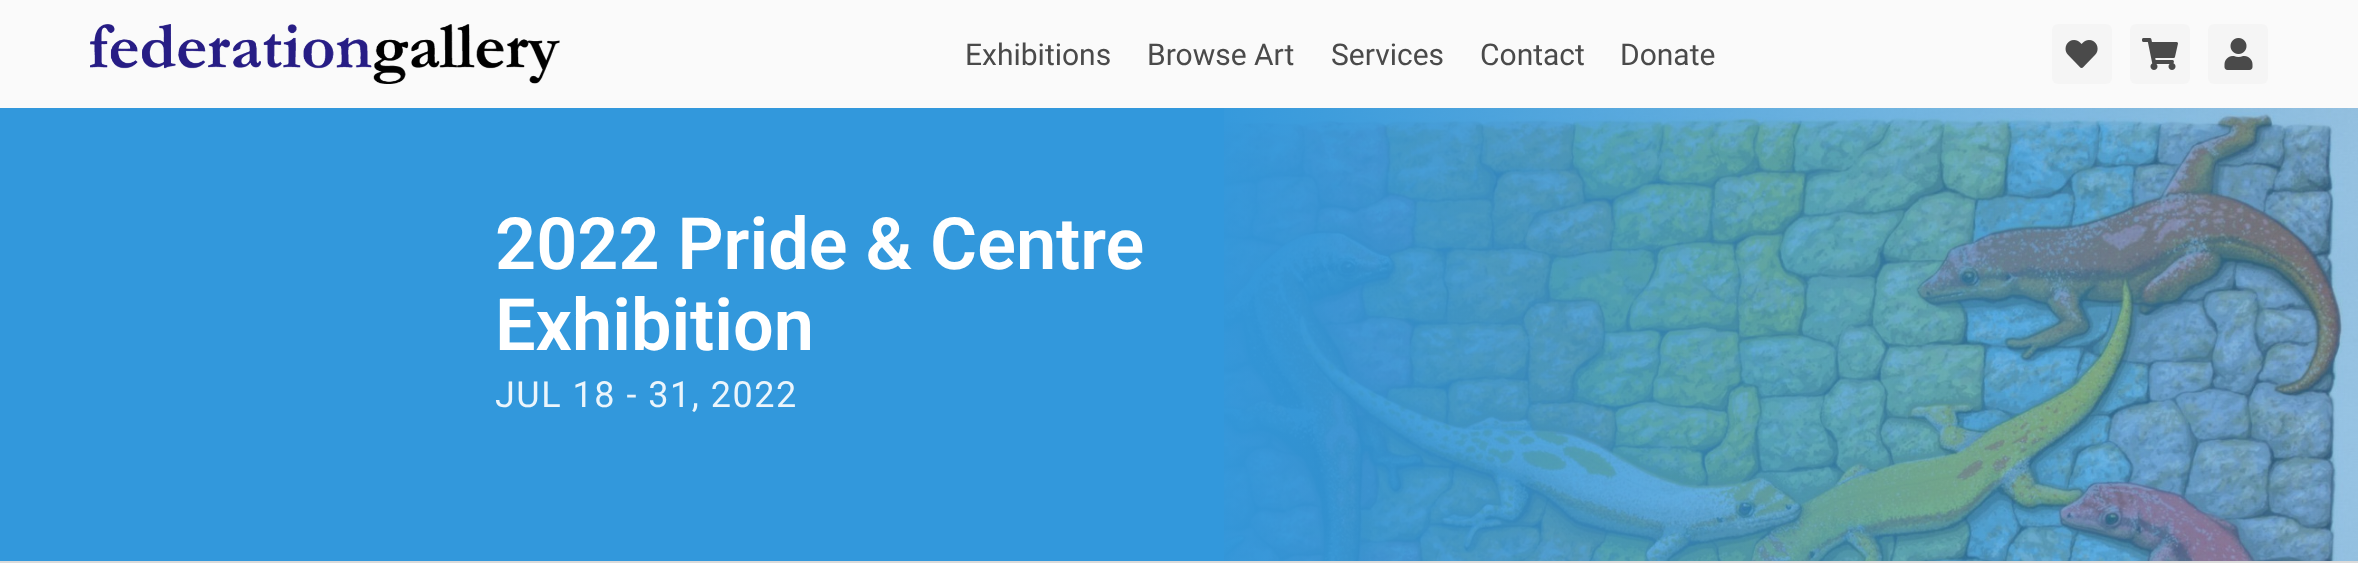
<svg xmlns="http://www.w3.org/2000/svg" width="2358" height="563">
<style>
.a{font:30px Roboto;fill:#4a4a4a}
.b{font:600 72px Roboto;fill:#fff}
.c{font:36px Roboto;letter-spacing:1.5px;fill:#ebf5fc}
</style>
<rect width="100%" height="100%" fill="#dbdbdb"/>
<path fill="#fafafa" d="M0 0h2358v108H0z"/>
<image href="1.png" x="90" y="24" width="470" height="60"/>
<rect fill="#f5f5f5" x="2052" y="24" width="60" height="60" rx="6"/>
<image href="2.png" x="2065" y="40" width="33" height="28"/>
<rect fill="#f5f5f5" x="2130" y="24" width="60" height="60" rx="6"/>
<image href="3.png" x="2142" y="38" width="36" height="32"/>
<rect fill="#f5f5f5" x="2208" y="24" width="60" height="60" rx="6"/>
<image href="4.png" x="2224" y="38" width="29" height="32"/>
<path fill="#3298dc" d="M0 108h1224v453H0z"/>
<image href="5.png" x="1224" y="108" width="1134" height="453"/>
<text class="a" x="965" y="65">Exhibitions</text>
<text class="a" x="1147" y="65">Browse Art</text>
<text class="a" x="1331" y="65">Services</text>
<text class="a" x="1480" y="65">Contact</text>
<text class="a" x="1620" y="65">Donate</text>
<text class="b" x="495" y="269">2022 Pride &amp; Centre</text>
<text class="b" x="495" y="350">Exhibition</text>
<text class="c" x="495" y="407">JUL 18 - 31, 2022</text>
</svg>
